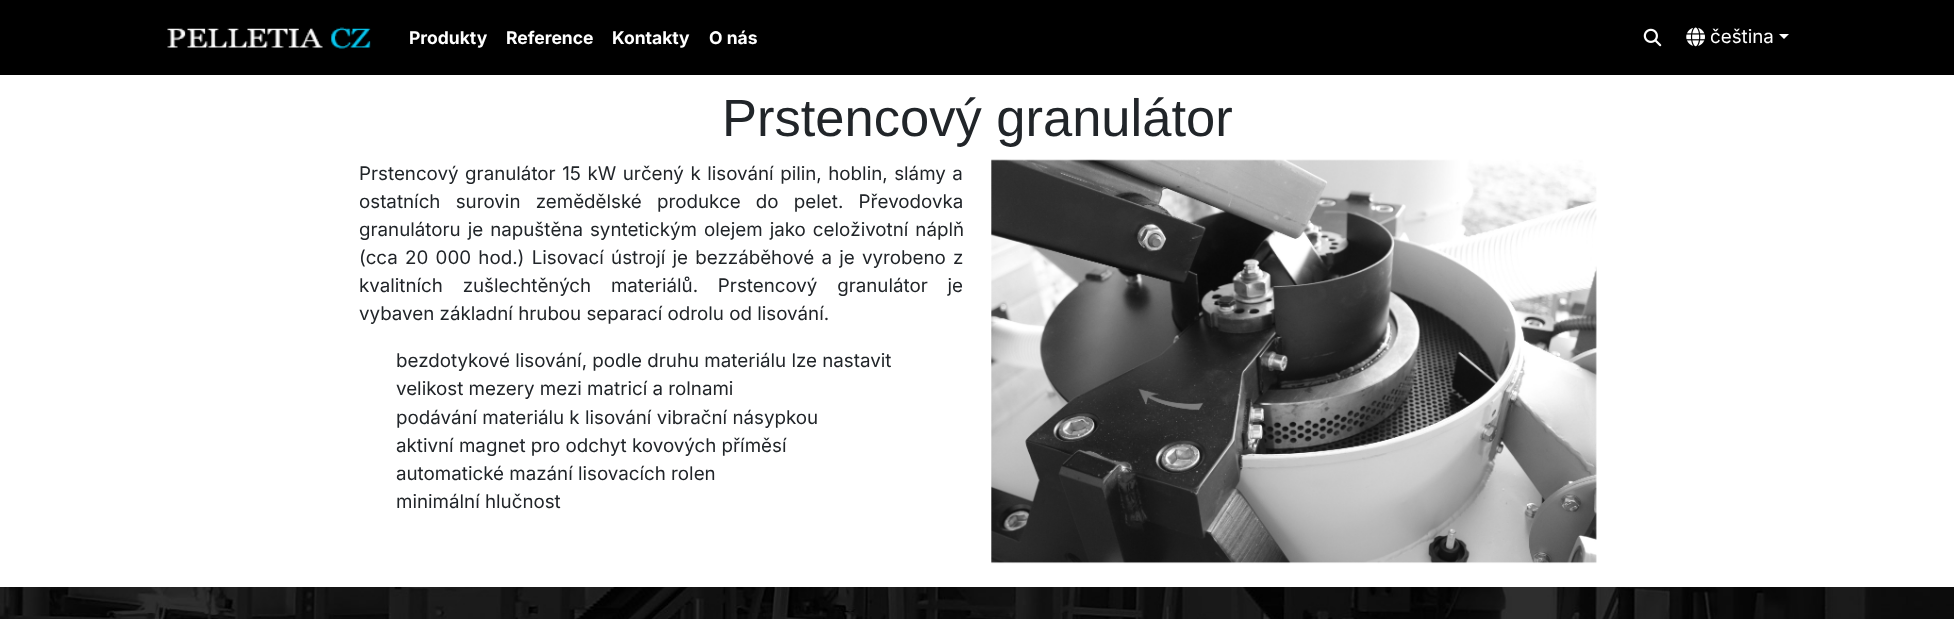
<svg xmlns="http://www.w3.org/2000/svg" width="1954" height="619">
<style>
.a{font:bold 17.5px Inter;fill:#fff}
.b{font:18.75px Inter;fill:#fff}
.c{font:52.5px Liberation Sans;fill:#212529}
.d{font:18.75px Inter;fill:#212529}
</style>
<rect width="100%" height="100%" fill="#fff"/>
<path fill="#000" d="M0 0h1954v75H0z"/>
<image href="1.png" x="167" y="27" width="204" height="22"/>
<image href="2.png" x="1643" y="28" width="19" height="19"/>
<image href="3.png" x="1686" y="27" width="19" height="20"/>
<path fill="#fff" d="M1779 34h10l-5 5z"/>
<image href="4.png" x="991" y="159" width="606" height="405"/>
<image href="5.png" x="0" y="587" width="1954" height="32"/>
<text class="a" x="409" y="44">Produkty</text>
<text class="a" x="506" y="44">Reference</text>
<text class="a" x="612" y="44">Kontakty</text>
<text class="a" x="709" y="44">O nás</text>
<text class="b" x="1710" y="43">čeština</text>
<text class="c" x="722" y="136">Prstencový granulátor</text>
<text class="d" x="359" y="180" word-spacing="1.25">Prstencový granulátor 15 kW určený k lisování pilin, hoblin, slámy a</text>
<text class="d" x="359" y="208" word-spacing="10">ostatních surovin zemědělské produkce do pelet. Převodovka</text>
<text class="d" x="359" y="236" word-spacing="1.75">granulátoru je napuštěna syntetickým olejem jako celoživotní náplň</text>
<text class="d" x="359" y="264" word-spacing="2">(cca 20 000 hod.) Lisovací ústrojí je bezzáběhové a je vyrobeno z</text>
<text class="d" x="359" y="292" word-spacing="14.5">kvalitních zušlechtěných materiálů. Prstencový granulátor je</text>
<text class="d" x="359" y="320">vybaven základní hrubou separací odrolu od lisování.</text>
<text class="d" x="396" y="367">bezdotykové lisování, podle druhu materiálu lze nastavit</text>
<text class="d" x="396" y="395">velikost mezery mezi matricí a rolnami</text>
<text class="d" x="396" y="424">podávání materiálu k lisování vibrační násypkou</text>
<text class="d" x="396" y="452">aktivní magnet pro odchyt kovových příměsí</text>
<text class="d" x="396" y="480">automatické mazání lisovacích rolen</text>
<text class="d" x="396" y="508">minimální hlučnost</text>
</svg>
